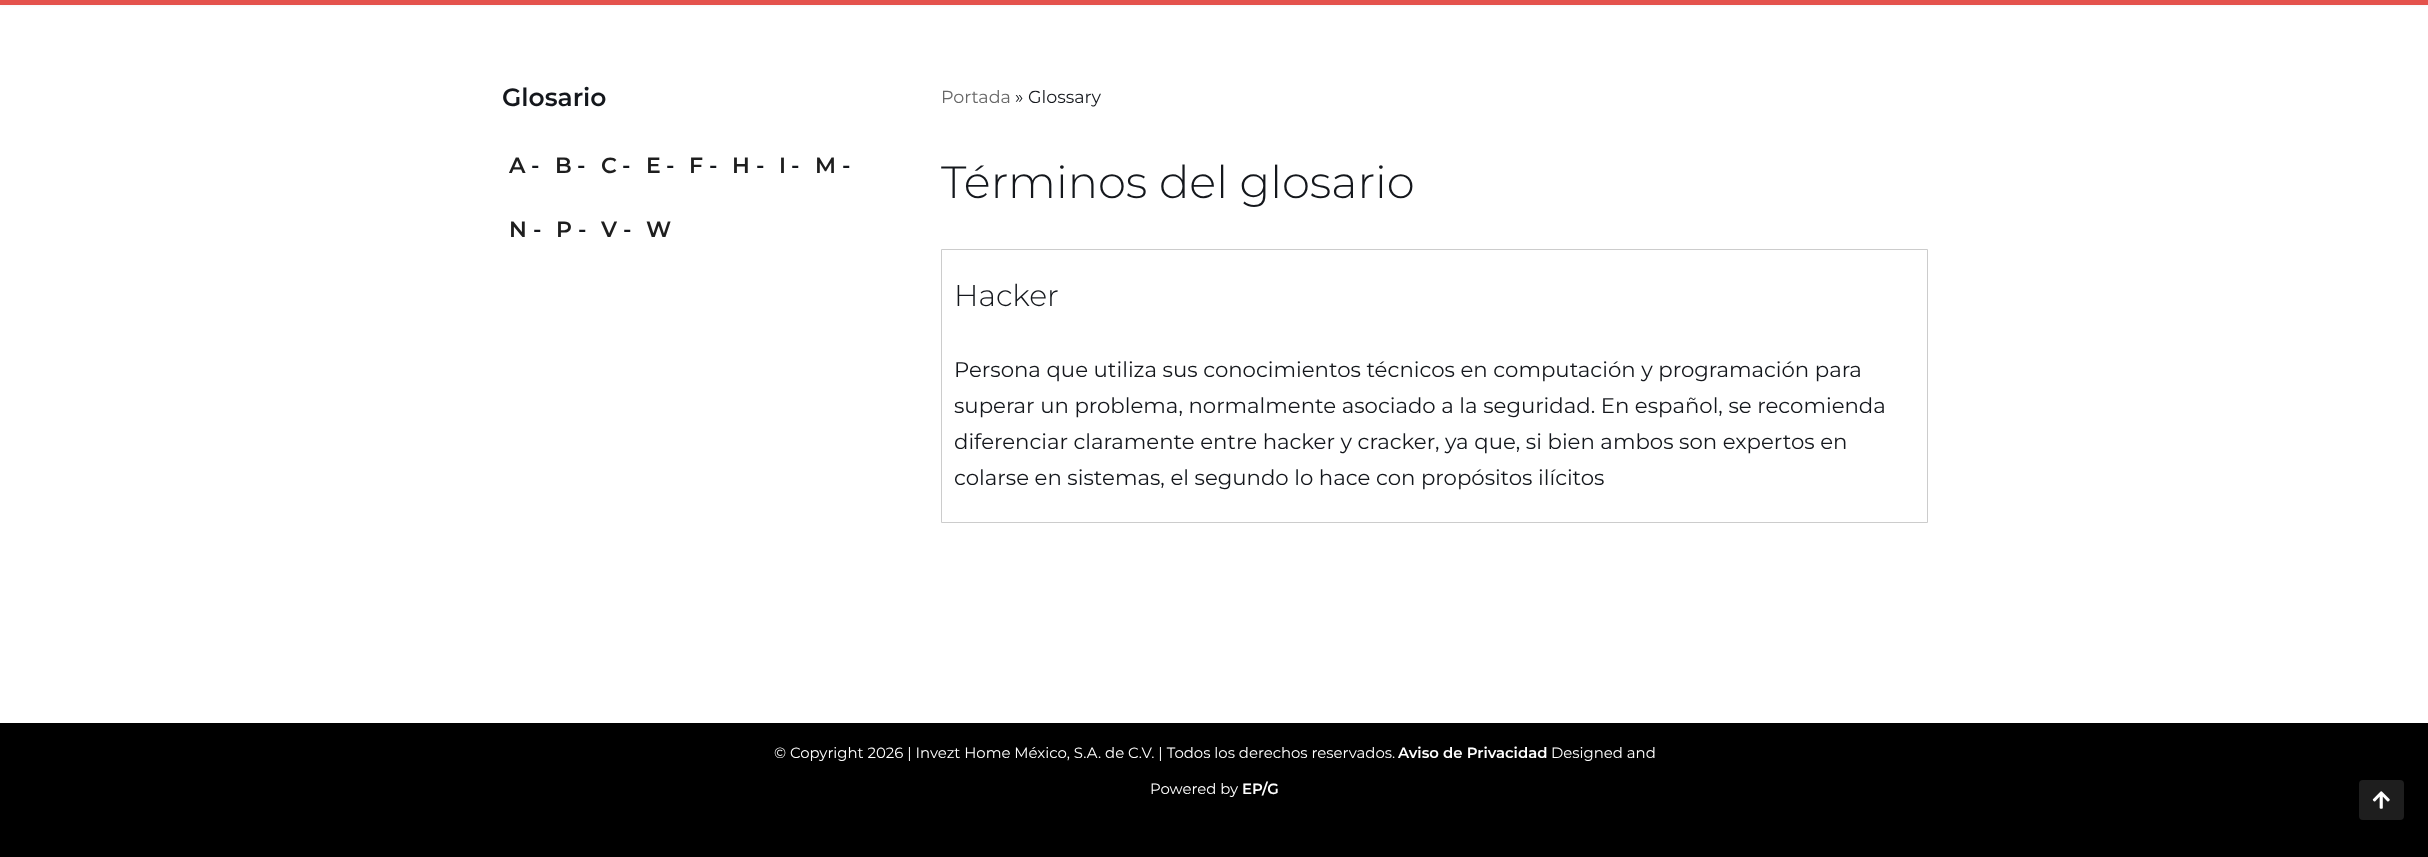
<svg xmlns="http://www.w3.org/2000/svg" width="2428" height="857">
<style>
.a{font:600 25px Montserrat;fill:#14171c}
.b{font:600 22px Montserrat;fill:#1e1e1e}
.c{font:600 22px Montserrat;fill:#14171c}
.d{font:17.5px Montserrat;fill:#676767}
.e{font:17.5px Montserrat;fill:#14171c}
.f{font:300 45px Montserrat;fill:#14171c}
.g{font:300 30px Montserrat;fill:#14171c}
.h{font:21.25px Montserrat;fill:#14171c}
.i{font:14.9px Montserrat;fill:#fff}
.j{font:600 14.9px Montserrat;fill:#fff}
</style>
<rect width="100%" height="100%" fill="#fff"/>
<path fill="#0000001a" filter="blur(2px)" d="M0 -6h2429v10H0z"/>
<path fill="#e4524c" d="M0 0h2428v5H0z"/>
<path fill="none" stroke="#ccc" d="M941.5 249.5h986v273H941.5z"/>
<path fill="#000" d="M0 723h2428v134H0z"/>
<rect fill="#1e1e1e" x="2359" y="780" width="45" height="40" rx="4"/>
<image href="1.png" x="2372" y="791" width="18" height="18"/>
<text class="a" x="502" y="106">Glosario</text>
<text class="b" x="509" y="173">A</text>
<text class="c" x="531" y="173">-</text>
<text class="b" x="555" y="173">B</text>
<text class="c" x="577" y="173">-</text>
<text class="b" x="601" y="173">C</text>
<text class="c" x="622" y="173">-</text>
<text class="b" x="646" y="173">E</text>
<text class="c" x="666" y="173">-</text>
<text class="b" x="689" y="173">F</text>
<text class="c" x="709" y="173">-</text>
<text class="b" x="732" y="173">H</text>
<text class="c" x="756" y="173">-</text>
<text class="b" x="779" y="173">I</text>
<text class="c" x="791" y="173">-</text>
<text class="b" x="815" y="173">M</text>
<text class="c" x="842" y="173">-</text>
<text class="b" x="509" y="237">N</text>
<text class="c" x="533" y="237">-</text>
<text class="b" x="556" y="237">P</text>
<text class="c" x="578" y="237">-</text>
<text class="b" x="601" y="237">V</text>
<text class="c" x="623" y="237">-</text>
<text class="b" x="646" y="237">W</text>
<text class="d" x="941" y="103">Portada</text>
<text class="e" x="1015" y="103">» Glossary</text>
<text class="f" x="941" y="198">Términos del glosario</text>
<text class="g" x="954" y="306">Hacker</text>
<text class="h" x="954" y="377">Persona que utiliza sus conocimientos técnicos en computación y programación para</text>
<text class="h" x="954" y="413">superar un problema, normalmente asociado a la seguridad. En español, se recomienda</text>
<text class="h" x="954" y="449">diferenciar claramente entre hacker y cracker, ya que, si bien ambos son expertos en</text>
<text class="h" x="954" y="485">colarse en sistemas, el segundo lo hace con propósitos ilícitos</text>
<text class="i" x="774" y="758">© Copyright 2026 | Invezt Home México, S.A. de C.V. | Todos los derechos reservados.</text>
<text class="j" x="1398" y="758">Aviso de Privacidad</text>
<text class="i" x="1551" y="758">Designed and</text>
<text class="i" x="1150" y="794">Powered by</text>
<text class="j" x="1242" y="794">EP/G</text>
</svg>
